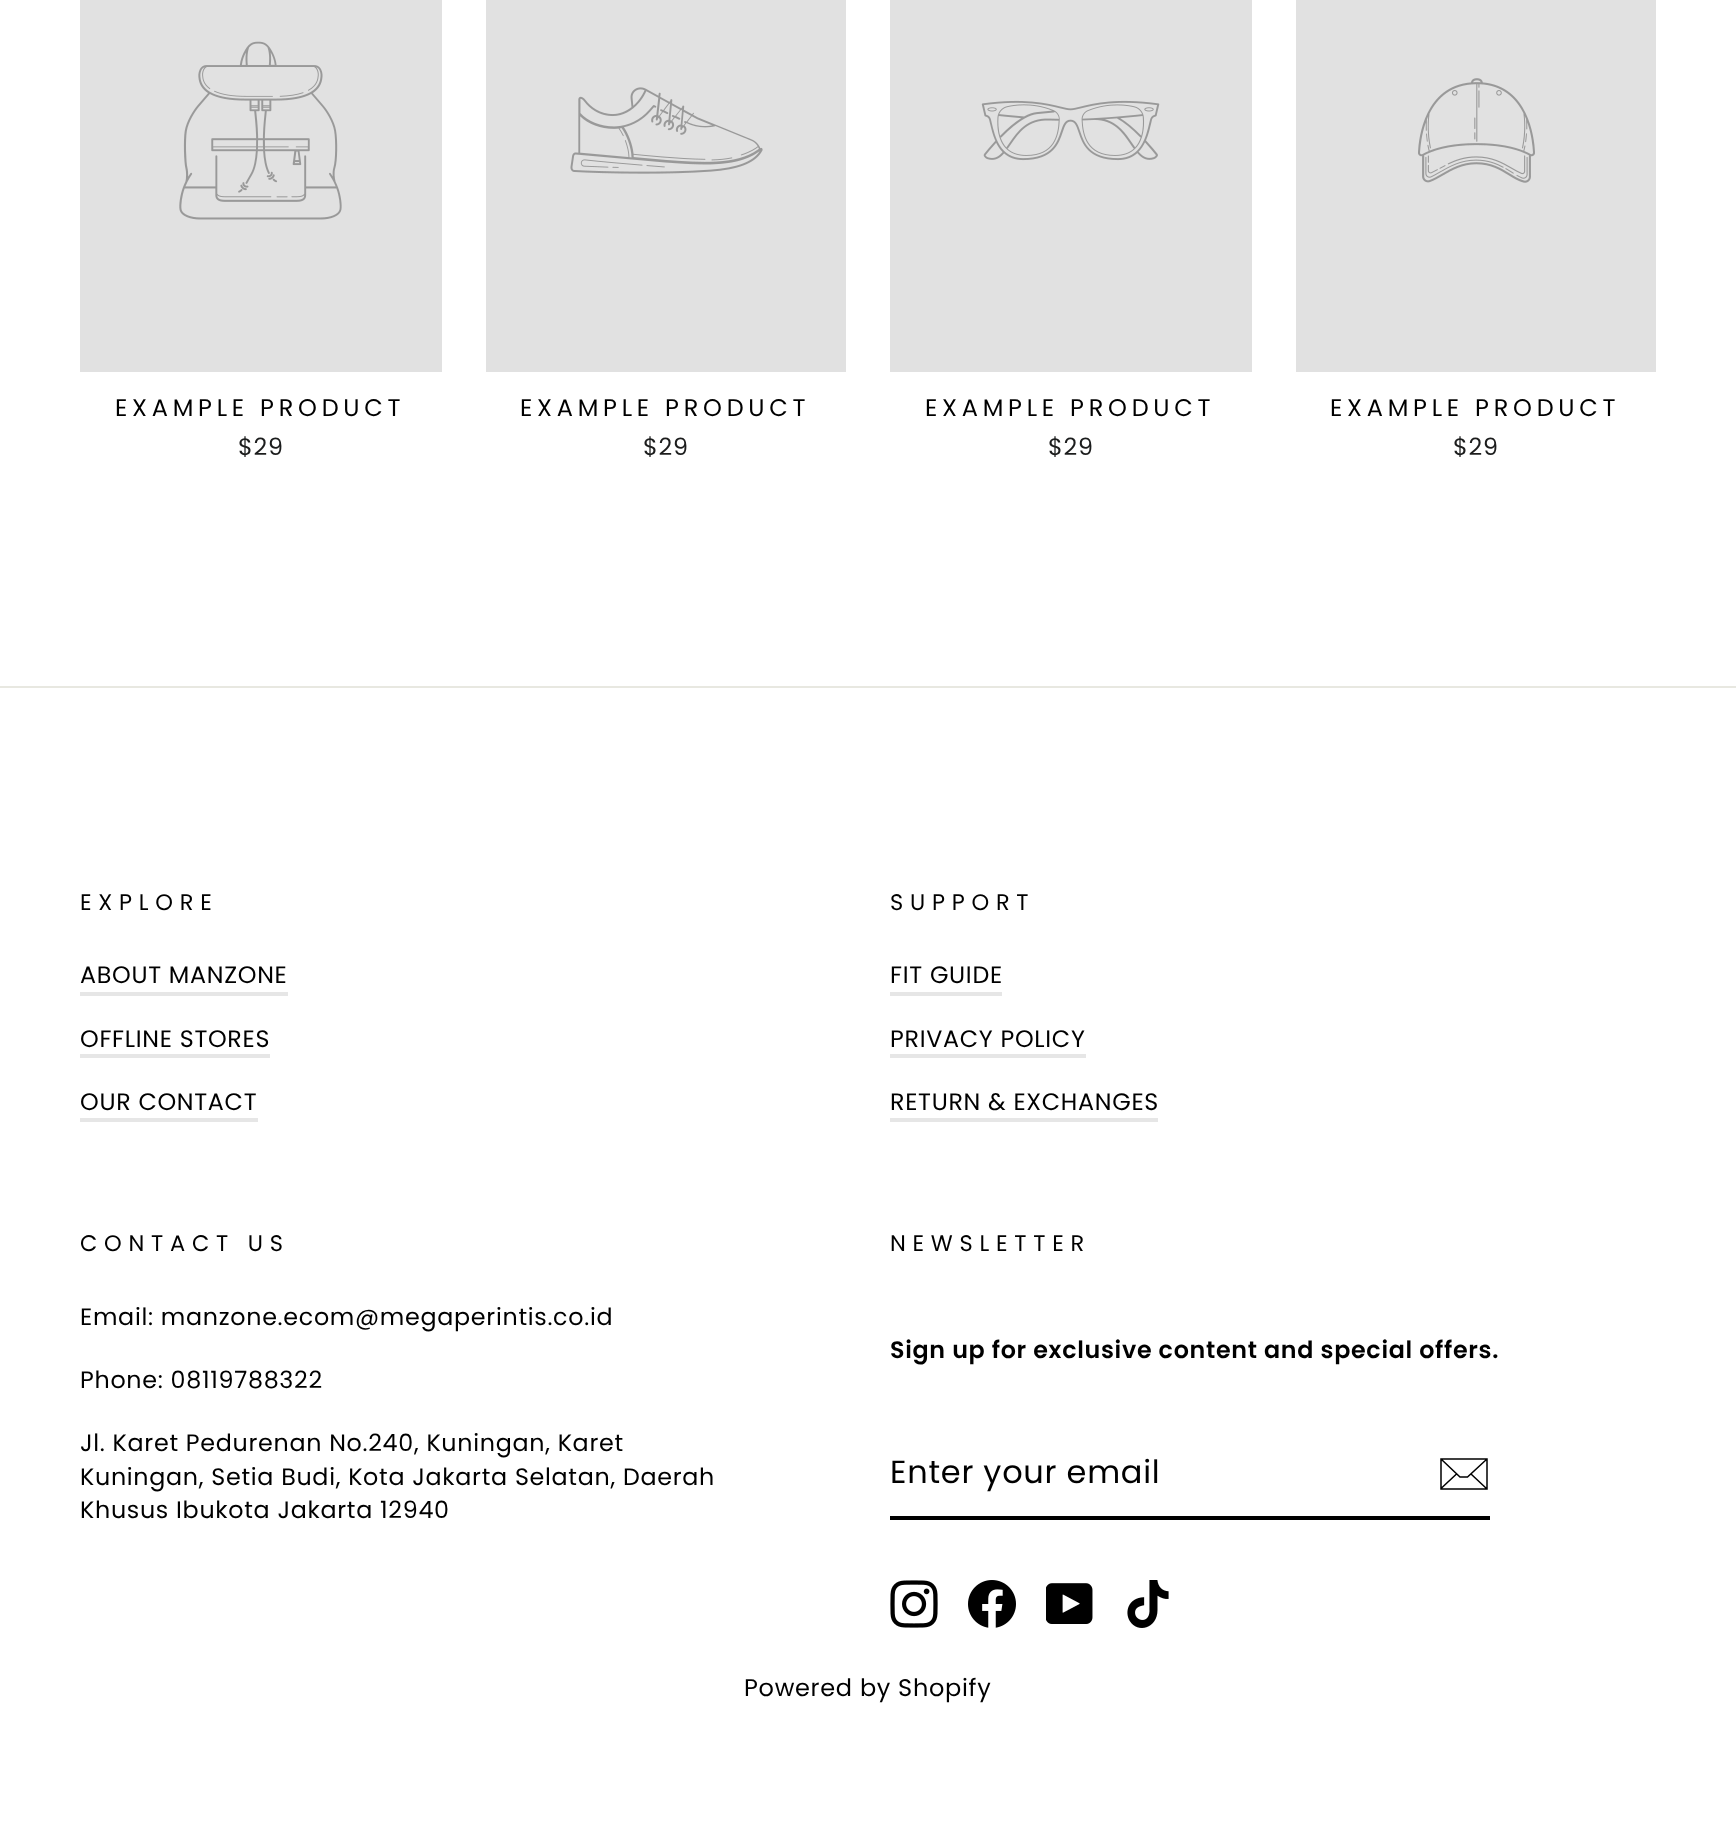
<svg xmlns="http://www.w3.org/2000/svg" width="1736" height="1840">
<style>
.a{font:24px Poppins;letter-spacing:4.75px;fill:#000}
.b{font:23.8px Poppins;letter-spacing:0.7px;fill:#1c1d1d}
.c{font:22.5px Poppins;letter-spacing:6.75px;fill:#000}
.d{font:23.8px Poppins;letter-spacing:0.7px;fill:#000}
.e{font:600 23.8px Poppins;letter-spacing:0.7px;fill:#000}
.f{font:32px Poppins;letter-spacing:0.75px;fill:#000}
.g{font:24px Poppins;letter-spacing:0.7px;fill:#000}
</style>
<rect width="100%" height="100%" fill="#fff"/>
<path fill="#e1e1e1" d="M80 0h362v372H80z"/>
<image href="1.png" x="179" y="41" width="163" height="179"/>
<path fill="#e1e1e1" d="M486 0h360v372H486z"/>
<image href="2.png" x="570" y="87" width="193" height="87"/>
<path fill="#e1e1e1" d="M890 0h362v372H890z"/>
<image href="3.png" x="981" y="100" width="179" height="61"/>
<path fill="#e1e1e1" d="M1296 0h360v372H1296z"/>
<image href="4.png" x="1418" y="78" width="117" height="105"/>
<path fill="#e8e8e1" d="M0 686h1736v2H0z"/>
<path fill="#e6e6e6" d="M80 992h208v4H80z"/>
<path fill="#e6e6e6" d="M80 1054h190v4H80z"/>
<path fill="#e6e6e6" d="M80 1118h178v4H80z"/>
<path fill="#e6e6e6" d="M890 992h112v4H890z"/>
<path fill="#e6e6e6" d="M890 1054h196v4H890z"/>
<path fill="#e6e6e6" d="M890 1118h268v4H890z"/>
<path fill="#000" d="M890 1516h600v4H890z"/>
<path fill="none" stroke="#000" stroke-width="1.5" d="M1487 1489h-46v-30h46zm-46-30l19 18h7.5l19.5-18m-30.5 15l-15.5 14.5m46 .5l-16-15"/>
<image href="5.png" x="890" y="1580" width="48" height="48"/>
<image href="6.png" x="968" y="1580" width="48" height="48"/>
<image href="7.png" x="1046" y="1583" width="47" height="41"/>
<image href="8.png" x="1127" y="1580" width="42" height="48"/>
<text class="a" x="115" y="416">EXAMPLE PRODUCT</text>
<text class="b" x="238" y="455">$29</text>
<text class="a" x="520" y="416">EXAMPLE PRODUCT</text>
<text class="b" x="643" y="455">$29</text>
<text class="a" x="925" y="416">EXAMPLE PRODUCT</text>
<text class="b" x="1048" y="455">$29</text>
<text class="a" x="1330" y="416">EXAMPLE PRODUCT</text>
<text class="b" x="1453" y="455">$29</text>
<text class="c" x="80" y="910">EXPLORE</text>
<text class="d" x="80" y="983">ABOUT MANZONE</text>
<text class="d" x="80" y="1047">OFFLINE STORES</text>
<text class="d" x="80" y="1110">OUR CONTACT</text>
<text class="c" x="890" y="910">SUPPORT</text>
<text class="d" x="890" y="983">FIT GUIDE</text>
<text class="d" x="890" y="1047">PRIVACY POLICY</text>
<text class="d" x="890" y="1110">RETURN &amp; EXCHANGES</text>
<text class="c" x="80" y="1251">CONTACT US</text>
<text class="d" x="80" y="1325">Email: manzone.ecom@megaperintis.co.id</text>
<text class="d" x="80" y="1388">Phone: 08119788322</text>
<text class="d" x="80" y="1451">Jl. Karet Pedurenan No.240, Kuningan, Karet</text>
<text class="d" x="80" y="1485">Kuningan, Setia Budi, Kota Jakarta Selatan, Daerah</text>
<text class="d" x="80" y="1518">Khusus Ibukota Jakarta 12940</text>
<text class="c" x="890" y="1251">NEWSLETTER</text>
<text class="e" x="890" y="1358">Sign up for exclusive content and special offers.</text>
<text class="f" x="890" y="1483">Enter your email</text>
<text class="g" x="744" y="1696">Powered by Shopify</text>
</svg>
